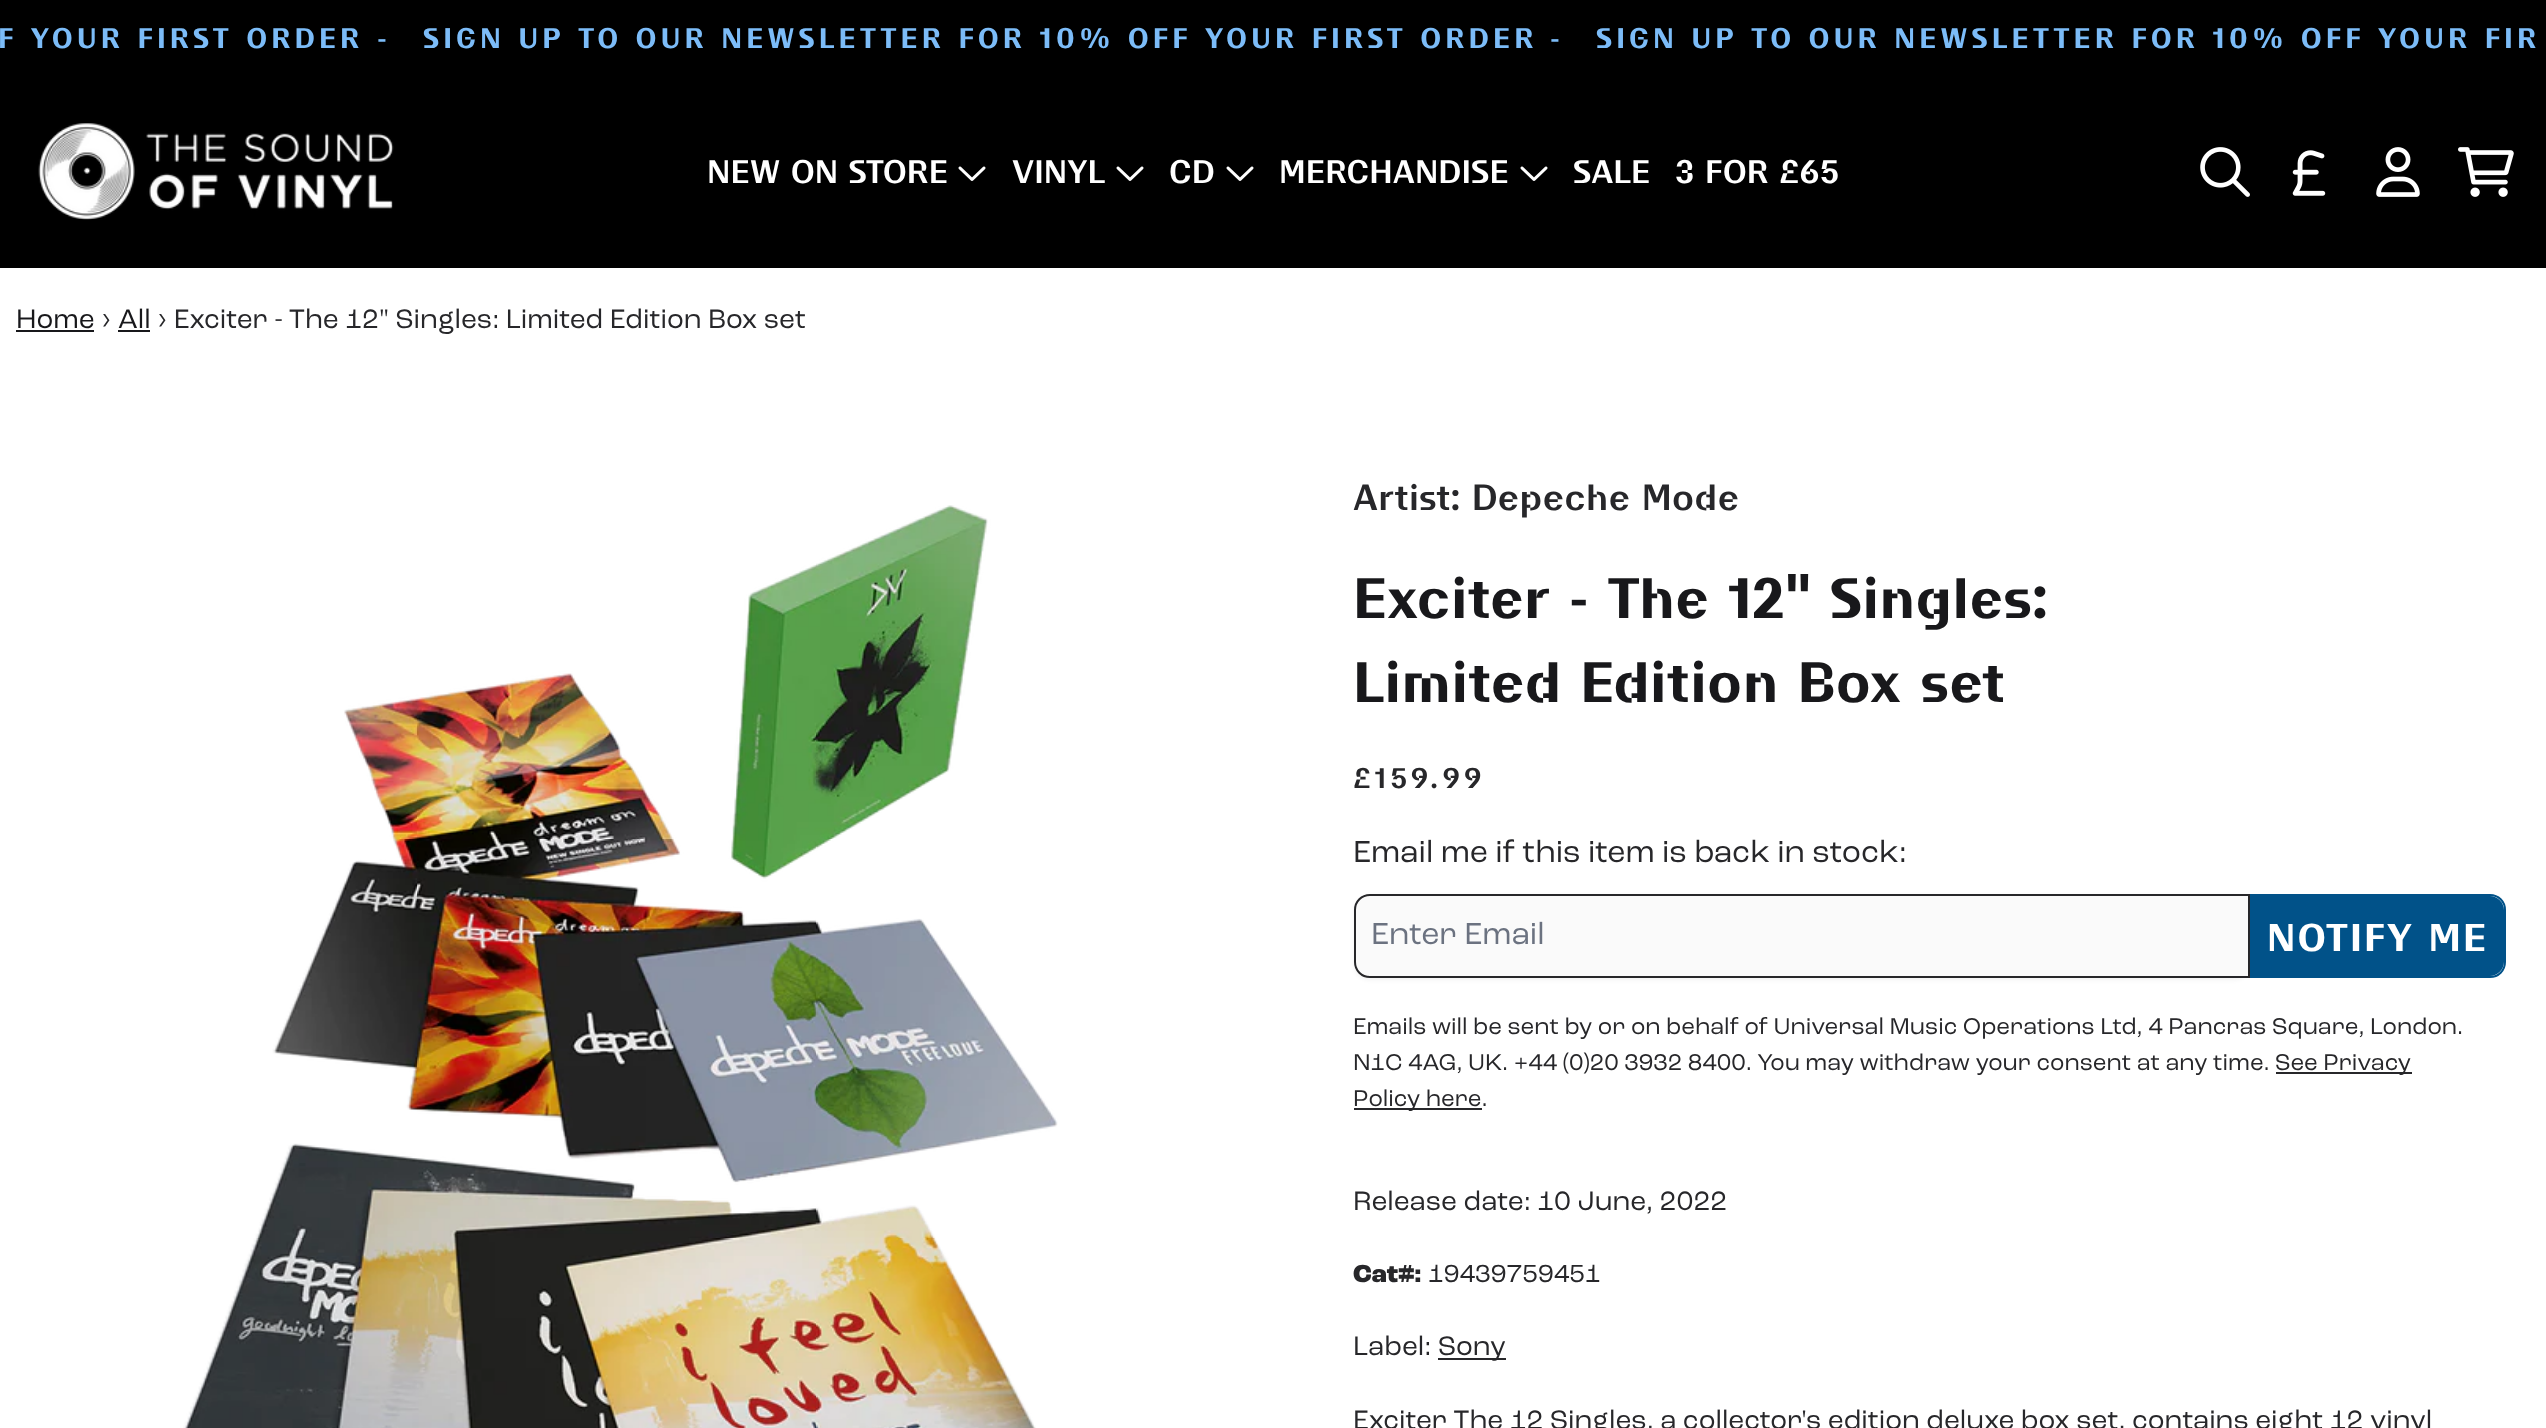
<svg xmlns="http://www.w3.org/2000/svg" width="2546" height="1428">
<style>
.a{font:bold 28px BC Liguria;letter-spacing:4px;fill:#7cbcf8}
.b{font:28px BC Liguria;letter-spacing:4px;fill:#7cbcf8}
.c{font:32px BC Liguria;fill:#fff}
.d{font:28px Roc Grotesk;fill:#18181b}
.e{font:28px Roc Grotesk;fill:#27272a}
.f{font:36px BC Liguria;fill:#27272a}
.g{font:bold 56px BC Liguria;fill:#18181b}
.h{font:28px BC Liguria;letter-spacing:4px;fill:#27272a}
.i{font:32px Roc Grotesk;fill:#27272a}
.j{font:32px Roc Grotesk;fill:#6b7280}
.k{font:bold 38px BC Liguria;letter-spacing:2px;fill:#fff}
.l{font:24px Roc Grotesk;fill:#27272a}
.m{font:800 26px Roc Grotesk;fill:#27272a}
.n{font:26px Roc Grotesk;fill:#27272a}
</style>
<rect width="100%" height="100%" fill="#fff"/>
<path fill="#000" d="M0 0h2546v268H0z"/>
<image href="1.png" x="38" y="123" width="356" height="97"/>
<image href="2.png" x="958" y="166" width="28" height="15"/>
<image href="2.png" x="1116" y="166" width="28" height="15"/>
<image href="2.png" x="1226" y="166" width="28" height="15"/>
<image href="2.png" x="1520" y="166" width="28" height="15"/>
<image href="3.png" x="2200" y="147" width="50" height="50"/>
<image href="4.png" x="2292" y="150" width="34" height="46"/>
<image href="5.png" x="2376" y="147" width="44" height="50"/>
<image href="6.png" x="2458" y="147" width="56" height="50"/>
<path fill="#18181b" d="M16 330h78v2H16z"/>
<path fill="#18181b" d="M118 330h32v2H118z"/>
<image href="7.png" x="183" y="505" width="875" height="923"/>
<rect fill="#0000000d" filter="blur(2px)" x="1354" y="896" width="896" height="84" rx="16"/>
<path fill="#fafafa" stroke="#27272a" stroke-width="2" d="M1370 895h879v82h-879c-8.5 0-15-6.5-15-15v-52c0-8.5 6.5-15 15-15z"/>
<path fill="none" stroke="#015289" stroke-width="2" d="M2251 895h239c8.5 0 15 6.5 15 15v52c0 8.5-6.5 15-15 15h-239z"/>
<path fill="#015289" d="M2252 896h238c7.5 0 14 6.5 14 14v52c0 7.5-6.5 14-14 14h-238z"/>
<path fill="#27272a" d="M2276 1072h136v2H2276z"/>
<path fill="#27272a" d="M1354 1108h128v2H1354z"/>
<path fill="#27272a" d="M1438 1358h68v2H1438z"/>
<text class="a" x="-2" y="48">F YOUR FIRST ORDER</text>
<text class="b" x="377" y="48">-</text>
<text class="a" x="423" y="48">SIGN UP TO OUR NEWSLETTER FOR 10% OFF YOUR FIRST ORDER</text>
<text class="b" x="1550" y="48">-</text>
<text class="a" x="1596" y="48">SIGN UP TO OUR NEWSLETTER FOR 10% OFF YOUR FIR</text>
<text class="c" x="707" y="183">NEW ON STORE</text>
<text class="c" x="1012" y="183">VINYL</text>
<text class="c" x="1169" y="183">CD</text>
<text class="c" x="1279" y="183">MERCHANDISE</text>
<text class="c" x="1573" y="183">SALE</text>
<text class="c" x="1675" y="183">3 FOR £65</text>
<text class="d" x="16" y="328">Home</text>
<text class="e" x="101" y="328">›</text>
<text class="d" x="118" y="328">All</text>
<text class="e" x="157" y="328">› Exciter - The 12" Singles: Limited Edition Box set</text>
<text class="f" x="1353" y="510">Artist: Depeche Mode</text>
<text class="g" x="1353" y="618">Exciter - The 12" Singles:</text>
<text class="g" x="1353" y="702">Limited Edition Box set</text>
<text class="h" x="1353" y="788">£159.99</text>
<text class="i" x="1353" y="862">Email me if this item is back in stock:</text>
<text class="j" x="1371" y="944">Enter Email</text>
<text class="k" x="2267" y="951">NOTIFY ME</text>
<text class="l" x="1353" y="1034">Emails will be sent by or on behalf of Universal Music Operations Ltd, 4 Pancras Square, London.</text>
<text class="l" x="1353" y="1070">N1C 4AG, UK. +44 (0)20 3932 8400. You may withdraw your consent at any time.</text>
<text class="l" x="2275" y="1070">See Privacy</text>
<text class="l" x="1353" y="1106">Policy here.</text>
<text class="e" x="1353" y="1210">Release date: 10 June, 2022</text>
<text class="m" x="1353" y="1282">Cat#:</text>
<text class="n" x="1428" y="1282">19439759451</text>
<text class="e" x="1353" y="1355">Label:</text>
<text class="e" x="1438" y="1355">Sony</text>
<text class="e" x="1353" y="1429">Exciter The 12 Singles, a collector's edition deluxe box set, contains eight 12 vinyl</text>
</svg>
